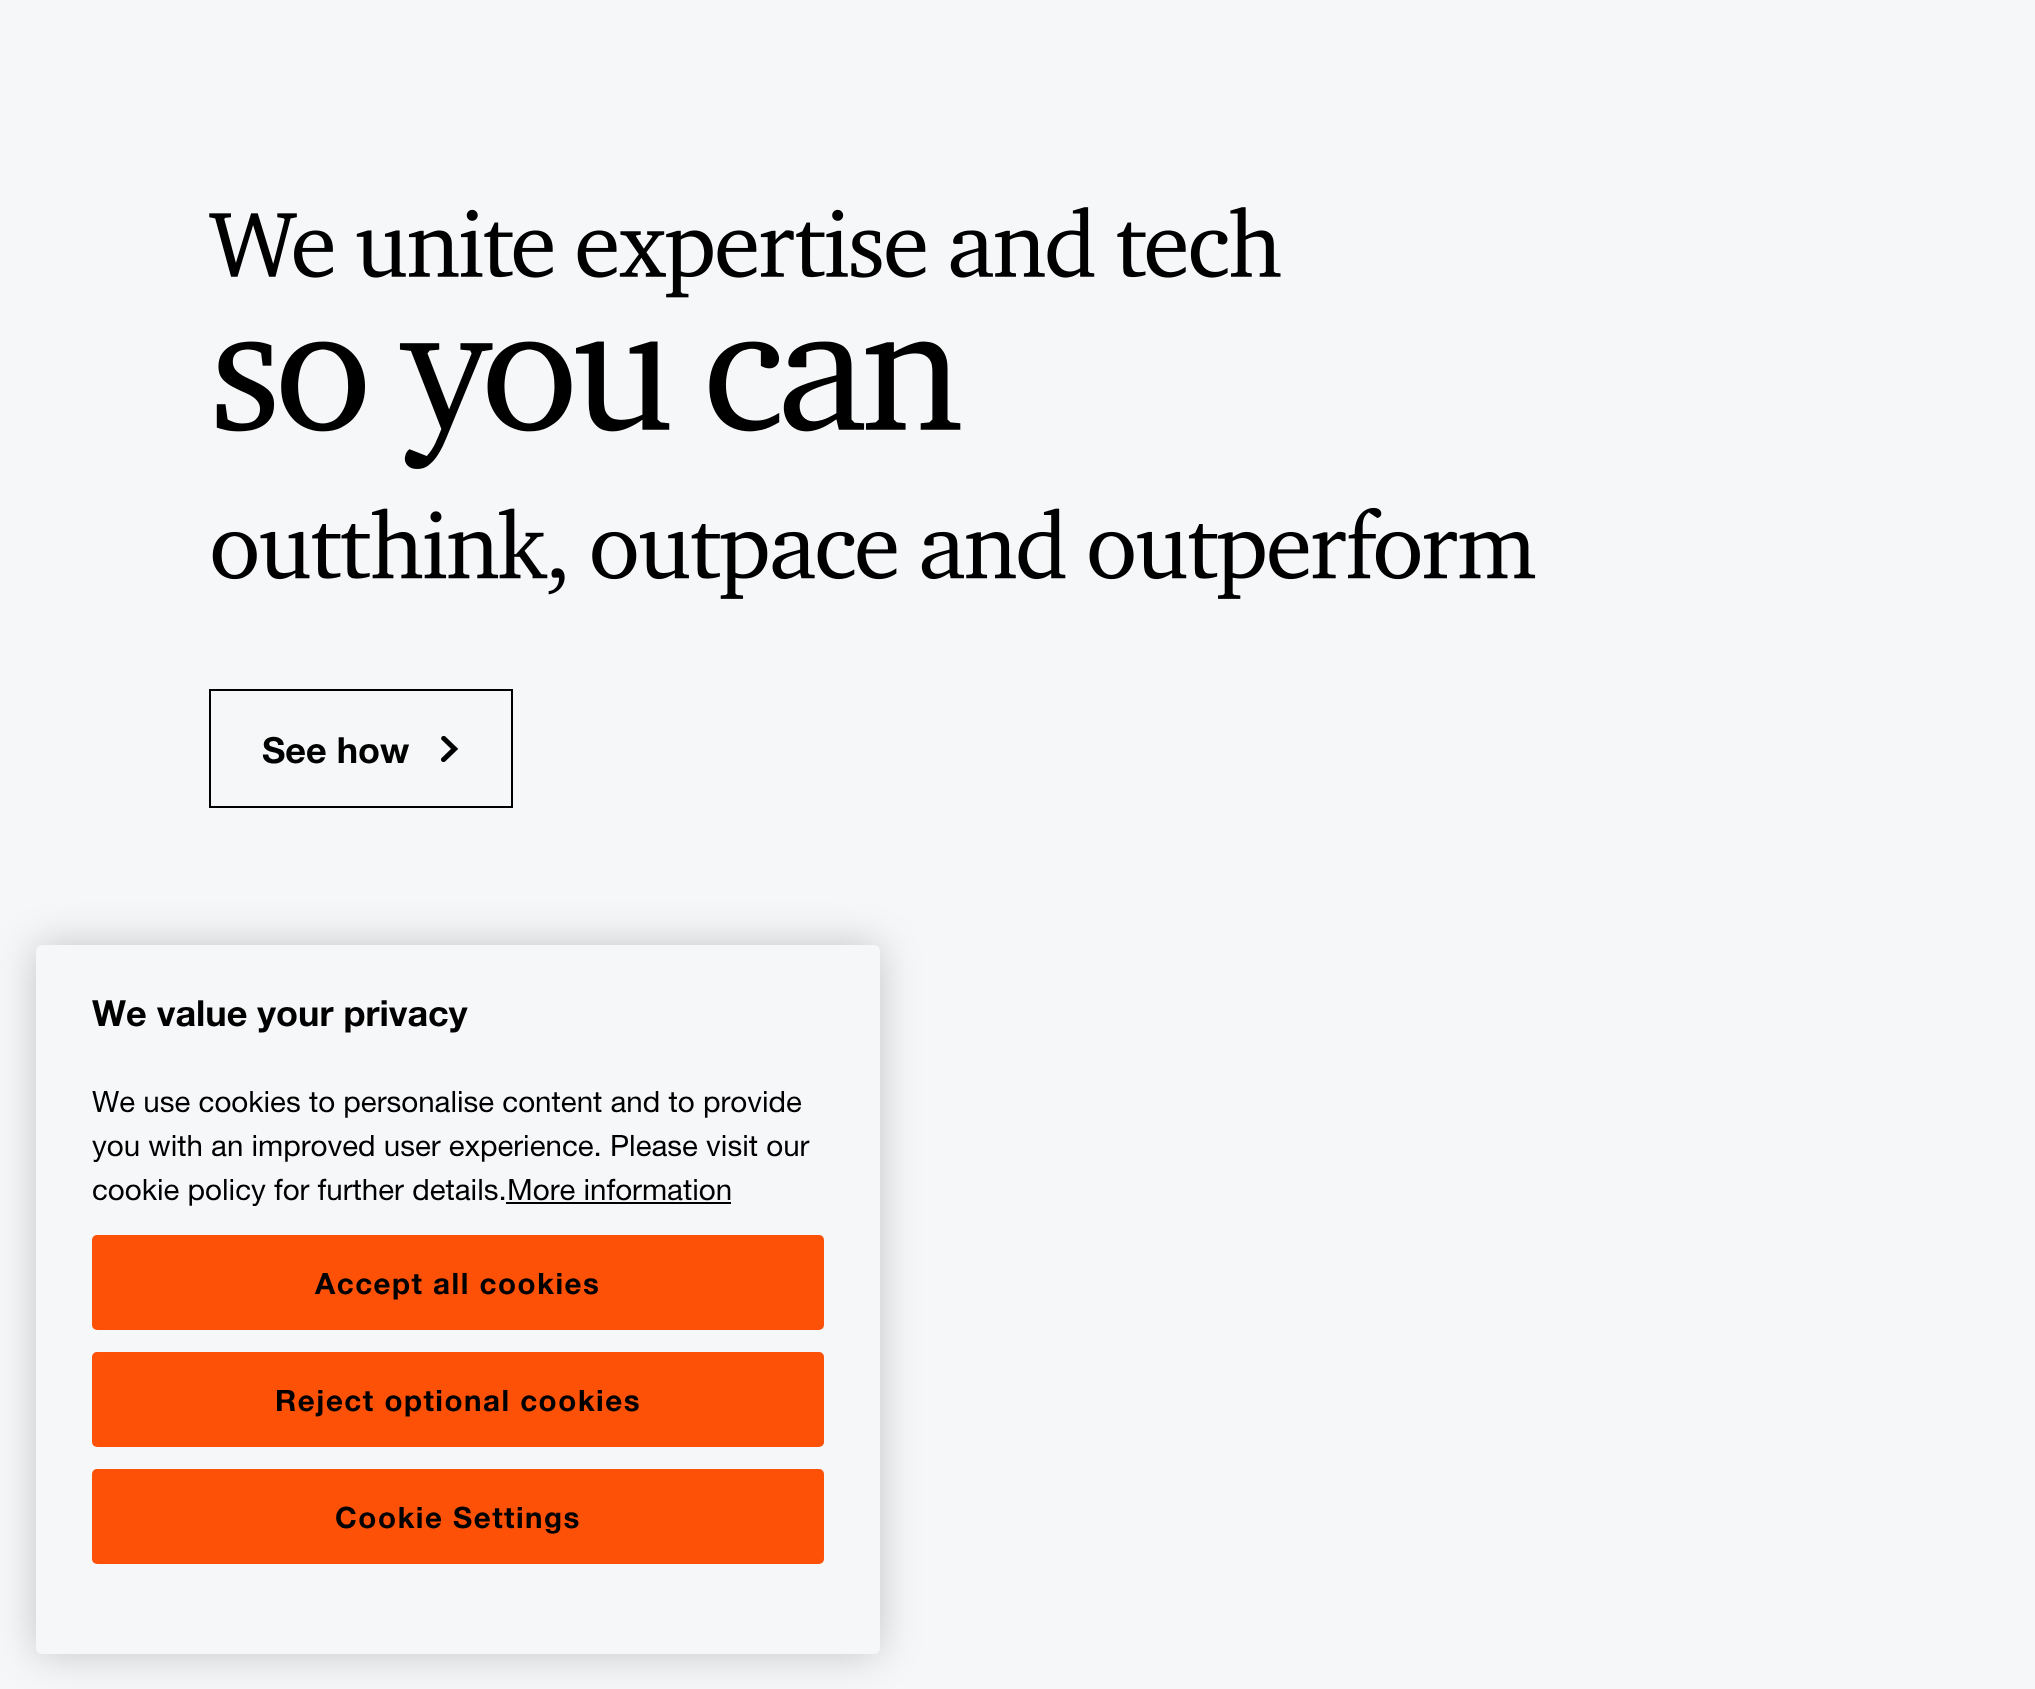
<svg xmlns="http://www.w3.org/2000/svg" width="2035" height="1689">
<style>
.a{font:bold 36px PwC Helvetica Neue;fill:#000}
.b{font:29.5px PwC Helvetica Neue;fill:#000}
.c{font:bold 29.5px PwC Helvetica Neue;letter-spacing:1.5px;fill:#000}
</style>
<rect width="100%" height="100%" fill="#f5f7f8"/>
<image href="1.png" x="209" y="207" width="1072" height="91"/>
<image href="2.png" x="216" y="341" width="745" height="128"/>
<image href="3.png" x="212" y="507" width="1324" height="92"/>
<path fill="none" stroke="#000" stroke-width="2" d="M210 690h302v117H210z"/>
<image href="4.png" x="441" y="736" width="18" height="26"/>
<rect fill="#00000033" filter="blur(20px)" x="36" y="945" width="844" height="709" rx="6"/>
<rect fill="#f5f7f8" x="36" y="945" width="844" height="709" rx="6"/>
<path fill="#000" d="M506 1202h225v2H506z"/>
<rect fill="#fd5108" x="92" y="1235" width="732" height="95" rx="5"/>
<rect fill="#fd5108" x="92" y="1352" width="732" height="95" rx="5"/>
<rect fill="#fd5108" x="92" y="1469" width="732" height="95" rx="5"/>
<text class="a" x="262" y="763">See how</text>
<text class="a" x="92" y="1026">We value your privacy</text>
<text class="b" x="92" y="1112">We use cookies to personalise content and to provide</text>
<text class="b" x="92" y="1156">you with an improved user experience. Please visit our</text>
<text class="b" x="92" y="1200">cookie policy for further details.</text>
<text class="b" x="507" y="1200">More information</text>
<text class="c" x="315" y="1294">Accept all cookies</text>
<text class="c" x="275" y="1411">Reject optional cookies</text>
<text class="c" x="335" y="1528">Cookie Settings</text>
</svg>
